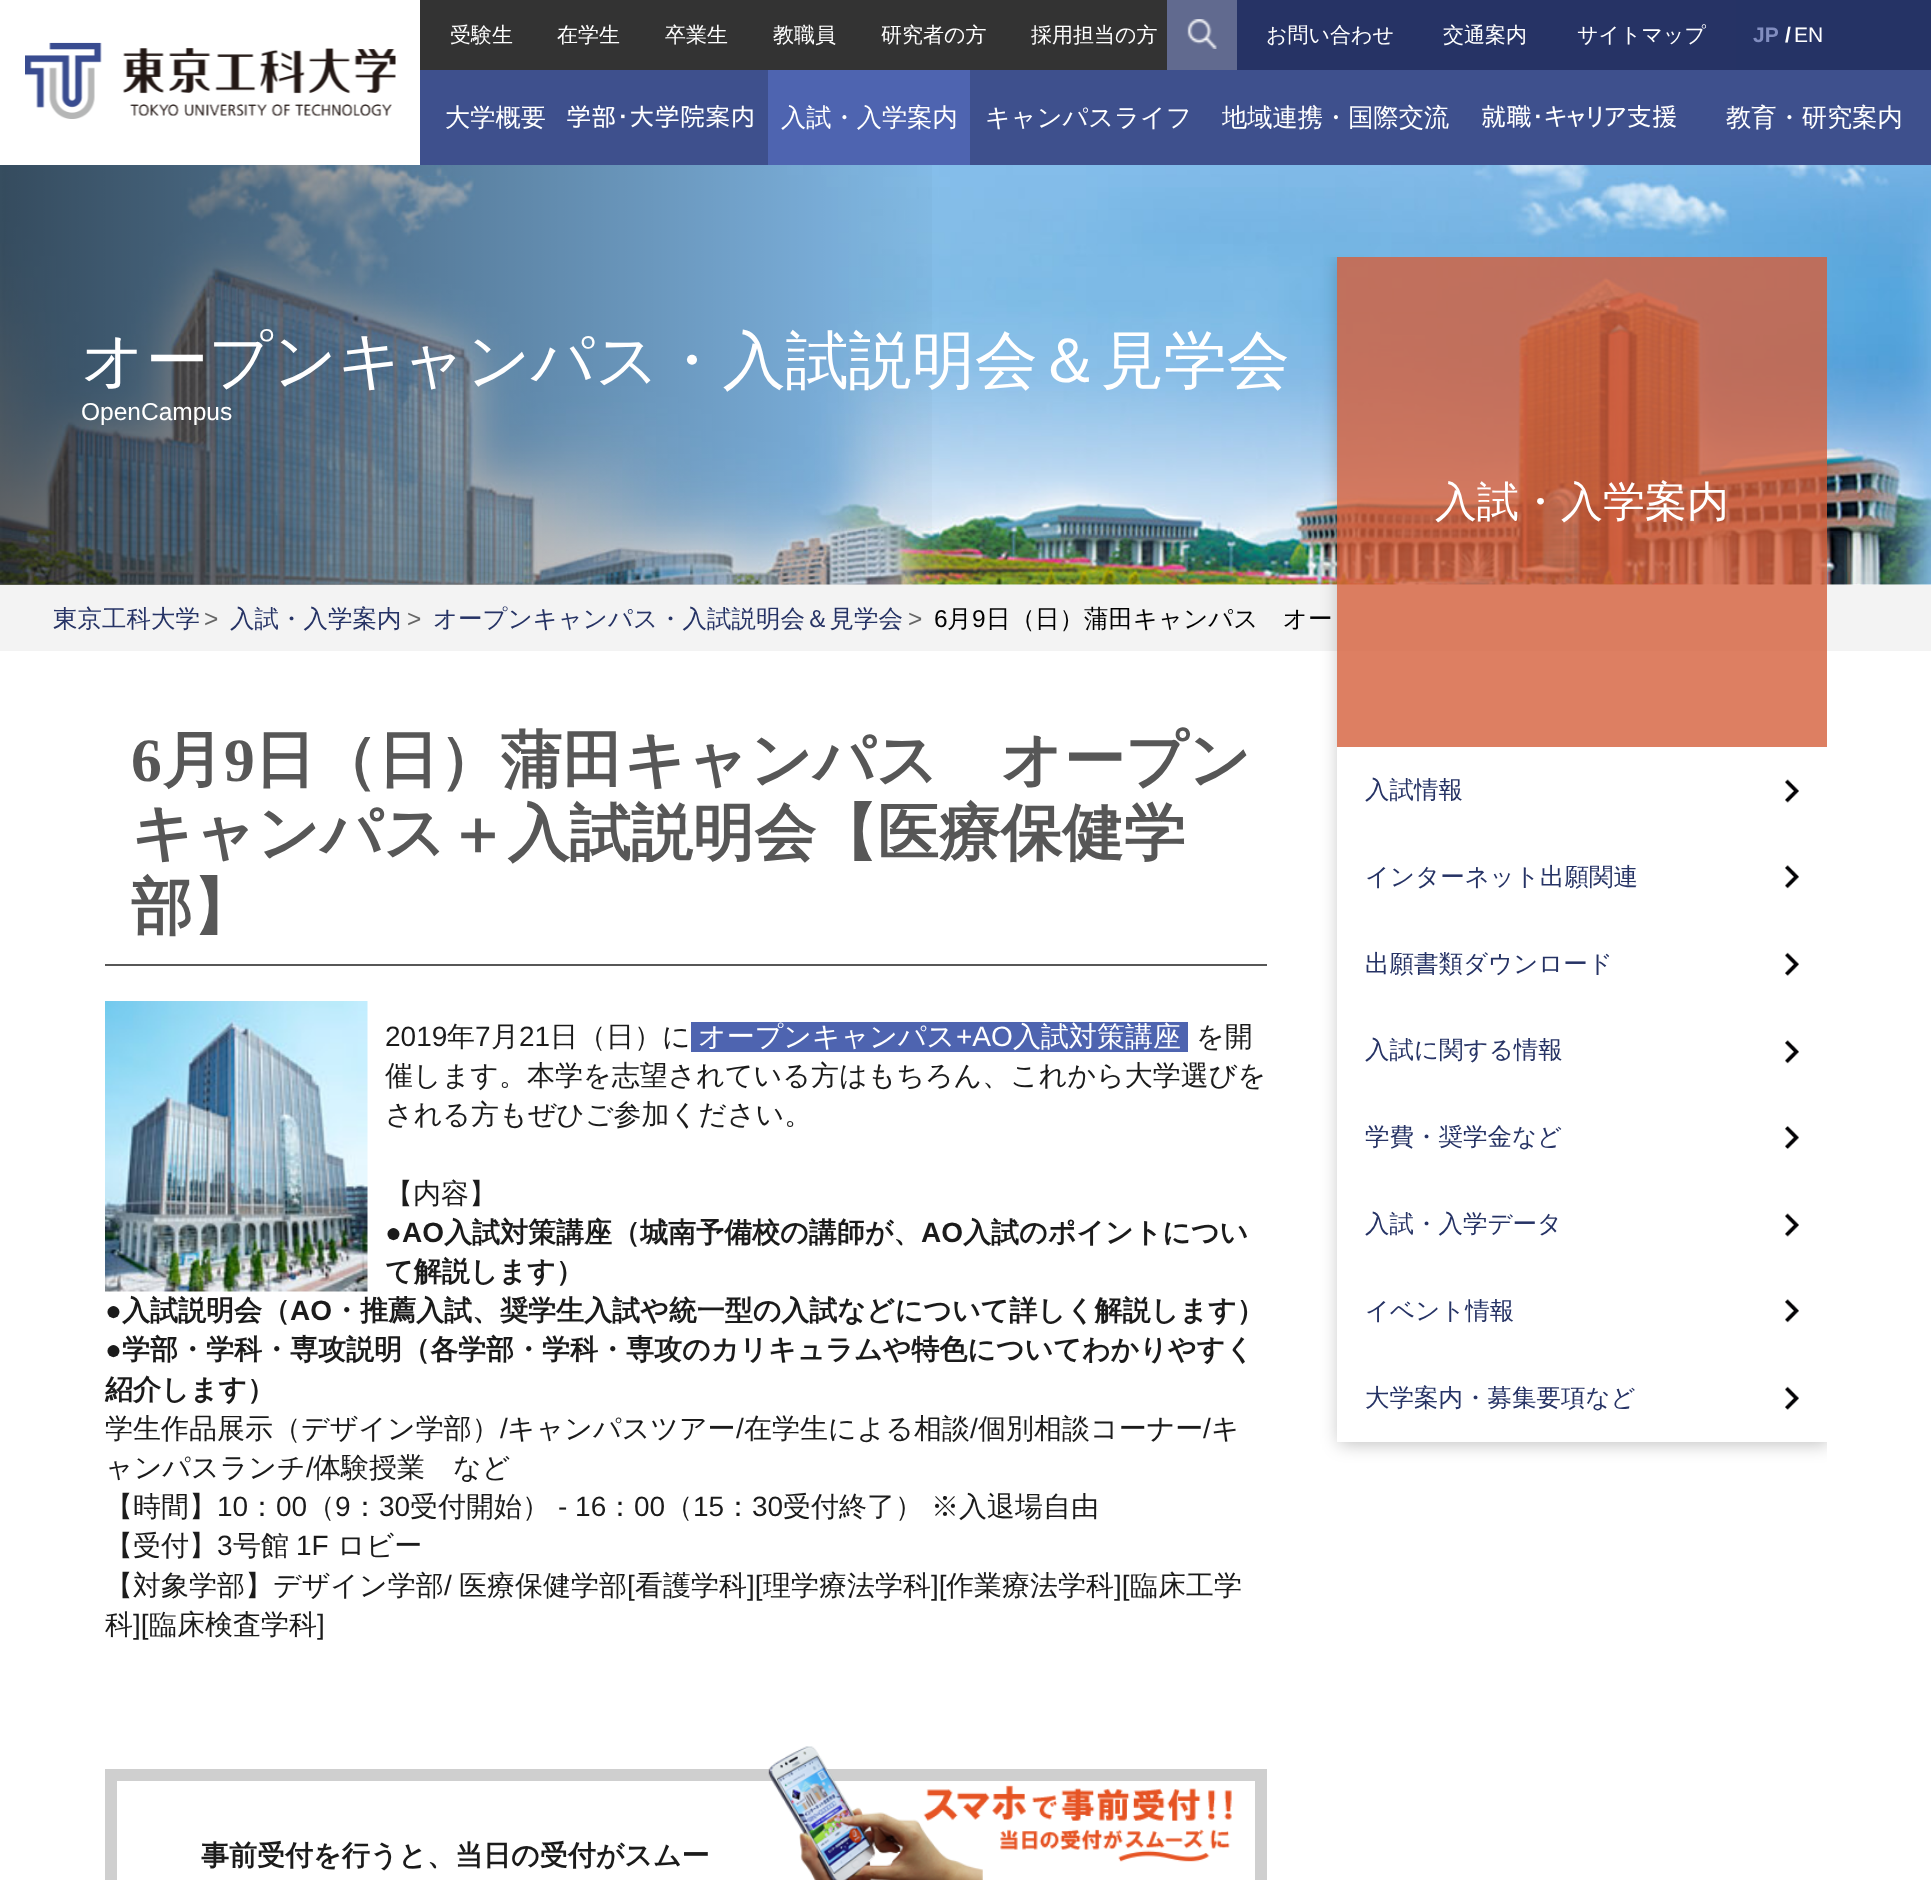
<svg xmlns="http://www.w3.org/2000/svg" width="1931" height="1880">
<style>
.a{font:500 21px WenQuanYi Zen Hei;fill:#fff}
.b{font:bold 21px Liberation Sans;fill:#818dbf}
.c{font:bold 21px Liberation Sans;fill:#fff}
.d{font:21px Liberation Sans;fill:#fff}
.e{font:500 25.25px WenQuanYi Zen Hei;fill:#fff}
.f{font:25.25px IPAPGothic;fill:#fff}
.g{font:500 63px WenQuanYi Zen Hei;fill:#fff}
.h{font:24.5px Liberation Sans;fill:#fff}
.i{font:bold 61.6px Liberation Serif;fill:#575757}
.j{font:bold 61.6px WenQuanYi Zen Hei;fill:#575757}
.k{font:28px Liberation Sans;fill:#1b1b1b}
.l{font:500 28px WenQuanYi Zen Hei;fill:#1b1b1b}
.m{font:500 28px WenQuanYi Zen Hei;fill:#fff}
.n{font:28px Liberation Sans;fill:#fff}
.o{font:bold 28px Liberation Sans;fill:#1b1b1b}
.p{font:bold 28px WenQuanYi Zen Hei;fill:#1b1b1b}
.q{font:500 42px WenQuanYi Zen Hei;fill:#fff}
.r{font:500 24.5px WenQuanYi Zen Hei;fill:#263365}
.s{font:24.5px Liberation Sans;fill:#666}
.t{font:24.5px Liberation Sans;fill:#000}
.u{font:500 24.5px WenQuanYi Zen Hei;fill:#000}
</style>
<defs>
<linearGradient id="g1" gradientUnits="userSpaceOnUse" x1="0" y1="375" x2="966" y2="374"><stop offset="0" stop-color="#000" stop-opacity="0.6"/><stop offset="1" stop-color="#000" stop-opacity="0"/></linearGradient>
<clipPath id="clip1"><path d="M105 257h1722v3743H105z"/></clipPath>
<clipPath id="clip2"><path d="M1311 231h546v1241h-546zm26 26h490v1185h-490z" clip-rule="evenodd"/></clipPath>
</defs>
<rect width="100%" height="100%" fill="#fff"/>
<image href="1.png" x="25" y="42" width="371" height="77"/>
<path fill="#333" d="M420 0h747v70H420z"/>
<path fill="#616a8f" d="M1167 0h70v70H1167z"/>
<image href="2.png" x="1187" y="19" width="30" height="30"/>
<path fill="#263365" d="M1237 0h499v70H1237z"/>
<path fill="#253365" d="M1736 0h195v70H1736z"/>
<path fill="#3e508d" d="M420 70h1511v95H420z"/>
<path fill="#4e64b0" d="M768 70h202v95H768z"/>
<image href="3.png" x="0" y="165" width="1931" height="420"/>
<path fill="url(#g1)" d="M0 165h932v420H0z"/>
<path fill="#575757" d="M105 964h1162v2H105z"/>
<image href="4.png" x="105" y="1001" width="263" height="291"/>
<path fill="#4e64b0" d="M691 1022h497v30H691z"/>
<path fill="none" stroke="#cfcfcf" stroke-width="12" d="M111 1775h1150v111H111z"/>
<image href="5.png" x="768" y="1746" width="464" height="134"/>
<path fill="#f3f3f3" d="M0 585h1931v66H0z"/>
<g clip-path="url(#clip1)">
<g clip-path="url(#clip2)">
<path fill="#00000040" filter="blur(9px)" d="M1339 259h490v1185H1339z"/>
</g>
</g>
<path fill="#d55f3bcc" d="M1337 257h490v490H1337z"/>
<image href="6.png" x="1785" y="779" width="14" height="24"/>
<image href="7.png" x="1785" y="865" width="14" height="24"/>
<image href="8.png" x="1785" y="952" width="14" height="24"/>
<image href="7.png" x="1785" y="1040" width="14" height="24"/>
<image href="9.png" x="1785" y="1126" width="14" height="23"/>
<image href="6.png" x="1785" y="1213" width="14" height="24"/>
<image href="7.png" x="1785" y="1299" width="14" height="24"/>
<image href="8.png" x="1785" y="1386" width="14" height="24"/>
<text class="a" x="450" y="42">受験生</text>
<text class="a" x="557" y="42">在学生</text>
<text class="a" x="665" y="42">卒業生</text>
<text class="a" x="773" y="42">教職員</text>
<text class="a" x="881" y="42">研究者の方</text>
<text class="a" x="1031" y="42">採用担当の方</text>
<text class="a" x="1266" y="42">お問い合わせ</text>
<text class="a" x="1443" y="42">交通案内</text>
<text class="a" x="1577" y="42">サイトマップ</text>
<text class="b" x="1753" y="42">JP</text>
<text class="c" x="1785" y="42">/</text>
<text class="d" x="1794" y="42">EN</text>
<text class="e" x="445" y="126">大学概要</text>
<text class="f" x="566" y="126">学部･大学院案内</text>
<text class="e" x="781" y="126">入試・入学案内</text>
<text class="e" x="985" y="126">キャンパスライフ</text>
<text class="e" x="1222" y="126">地域連携・国際交流</text>
<text class="f" x="1481" y="126">就職･キャリア支援</text>
<text class="e" x="1726" y="126">教育・研究案内</text>
<text class="g" x="81" y="382">オープンキャンパス・入試説明会＆見学会</text>
<text class="h" x="81" y="420">OpenCampus</text>
<text class="i" x="131" y="781">6</text>
<text class="j" x="162" y="781">月</text>
<text class="i" x="224" y="781">9</text>
<text class="j" x="254" y="781">日（日）蒲田キャンパス　オープン</text>
<text class="j" x="131" y="854">キャンパス＋入試説明会【医療保健学</text>
<text class="j" x="131" y="928">部】</text>
<text class="k" x="385" y="1046">2019</text>
<text class="l" x="447" y="1046">年</text>
<text class="k" x="475" y="1046">7</text>
<text class="l" x="491" y="1046">月</text>
<text class="k" x="519" y="1046">21</text>
<text class="l" x="550" y="1046">日（日）に</text>
<text class="m" x="698" y="1046">オープンキャンパス</text>
<text class="n" x="956" y="1046">+AO</text>
<text class="m" x="1013" y="1046">入試対策講座</text>
<text class="l" x="1196" y="1046">を開</text>
<text class="l" x="385" y="1085">催します。本学を志望されている方はもちろん、これから大学選びを</text>
<text class="l" x="385" y="1124">される方もぜひご参加ください。</text>
<text class="l" x="385" y="1203">【内容】</text>
<text class="o" x="385" y="1242">●AO</text>
<text class="p" x="444" y="1242">入試対策講座（城南予備校の講師が、</text>
<text class="o" x="921" y="1242">AO</text>
<text class="p" x="963" y="1242">入試のポイントについ</text>
<text class="p" x="385" y="1281">て解説します）</text>
<text class="o" x="105" y="1320">●</text>
<text class="p" x="122" y="1320">入試説明会（</text>
<text class="o" x="290" y="1320">AO</text>
<text class="p" x="332" y="1320">・推薦入試、奨学生入試や統一型の入試などについて詳しく解説します）</text>
<text class="o" x="105" y="1359">●</text>
<text class="p" x="122" y="1359">学部・学科・専攻説明（各学部・学科・専攻のカリキュラムや特色についてわかりやすく</text>
<text class="p" x="105" y="1399">紹介します）</text>
<text class="l" x="105" y="1438">学生作品展示（デザイン学部）</text>
<text class="k" x="500" y="1438">/</text>
<text class="l" x="507" y="1438">キャンパスツアー</text>
<text class="k" x="736" y="1438">/</text>
<text class="l" x="744" y="1438">在学生による相談</text>
<text class="k" x="970" y="1438">/</text>
<text class="l" x="978" y="1438">個別相談コーナー</text>
<text class="k" x="1203" y="1438">/</text>
<text class="l" x="1211" y="1438">キ</text>
<text class="l" x="105" y="1477">ャンパスランチ</text>
<text class="k" x="306" y="1477">/</text>
<text class="l" x="313" y="1477">体験授業　など</text>
<text class="l" x="105" y="1516">【時間】</text>
<text class="k" x="217" y="1516">10</text>
<text class="l" x="248" y="1516">：</text>
<text class="k" x="276" y="1516">00</text>
<text class="l" x="307" y="1516">（</text>
<text class="k" x="335" y="1516">9</text>
<text class="l" x="351" y="1516">：</text>
<text class="k" x="379" y="1516">30</text>
<text class="l" x="410" y="1516">受付開始）</text>
<text class="k" x="558" y="1516">- 16</text>
<text class="l" x="606" y="1516">：</text>
<text class="k" x="634" y="1516">00</text>
<text class="l" x="665" y="1516">（</text>
<text class="k" x="693" y="1516">15</text>
<text class="l" x="724" y="1516">：</text>
<text class="k" x="752" y="1516">30</text>
<text class="l" x="783" y="1516">受付終了）</text>
<text class="l" x="931" y="1516">※入退場自由</text>
<text class="l" x="105" y="1555">【受付】</text>
<text class="k" x="217" y="1555">3</text>
<text class="l" x="233" y="1555">号館</text>
<text class="k" x="296" y="1555">1F</text>
<text class="l" x="337" y="1555">ロビー</text>
<text class="l" x="105" y="1595">【対象学部】デザイン学部</text>
<text class="k" x="444" y="1595">/</text>
<text class="l" x="459" y="1595">医療保健学部</text>
<text class="k" x="627" y="1595">[</text>
<text class="l" x="635" y="1595">看護学科</text>
<text class="k" x="747" y="1595">][</text>
<text class="l" x="763" y="1595">理学療法学科</text>
<text class="k" x="931" y="1595">][</text>
<text class="l" x="946" y="1595">作業療法学科</text>
<text class="k" x="1114" y="1595">][</text>
<text class="l" x="1130" y="1595">臨床工学</text>
<text class="l" x="105" y="1634">科</text>
<text class="k" x="133" y="1634">][</text>
<text class="l" x="149" y="1634">臨床検査学科</text>
<text class="k" x="317" y="1634">]</text>
<text class="p" x="201" y="1865">事前受付を行うと、当日の受付がスムー</text>
<text class="q" x="1435" y="516">入試・入学案内</text>
<text class="r" x="1365" y="798">入試情報</text>
<text class="r" x="1365" y="885">インターネット出願関連</text>
<text class="r" x="1365" y="972">出願書類ダウンロード</text>
<text class="r" x="1365" y="1058">入試に関する情報</text>
<text class="r" x="1365" y="1145">学費・奨学金など</text>
<text class="r" x="1365" y="1232">入試・入学データ</text>
<text class="r" x="1365" y="1319">イベント情報</text>
<text class="r" x="1365" y="1406">大学案内・募集要項など</text>
<text class="r" x="53" y="627">東京工科大学</text>
<text class="s" x="204" y="627">&gt;</text>
<text class="r" x="230" y="627">入試・入学案内</text>
<text class="s" x="407" y="627">&gt;</text>
<text class="r" x="433" y="627">オープンキャンパス・入試説明会＆見学会</text>
<text class="s" x="908" y="627">&gt;</text>
<text class="t" x="934" y="627">6</text>
<text class="u" x="947" y="627">月</text>
<text class="t" x="972" y="627">9</text>
<text class="u" x="986" y="627">日（日）蒲田キャンパス　オー</text>
</svg>
